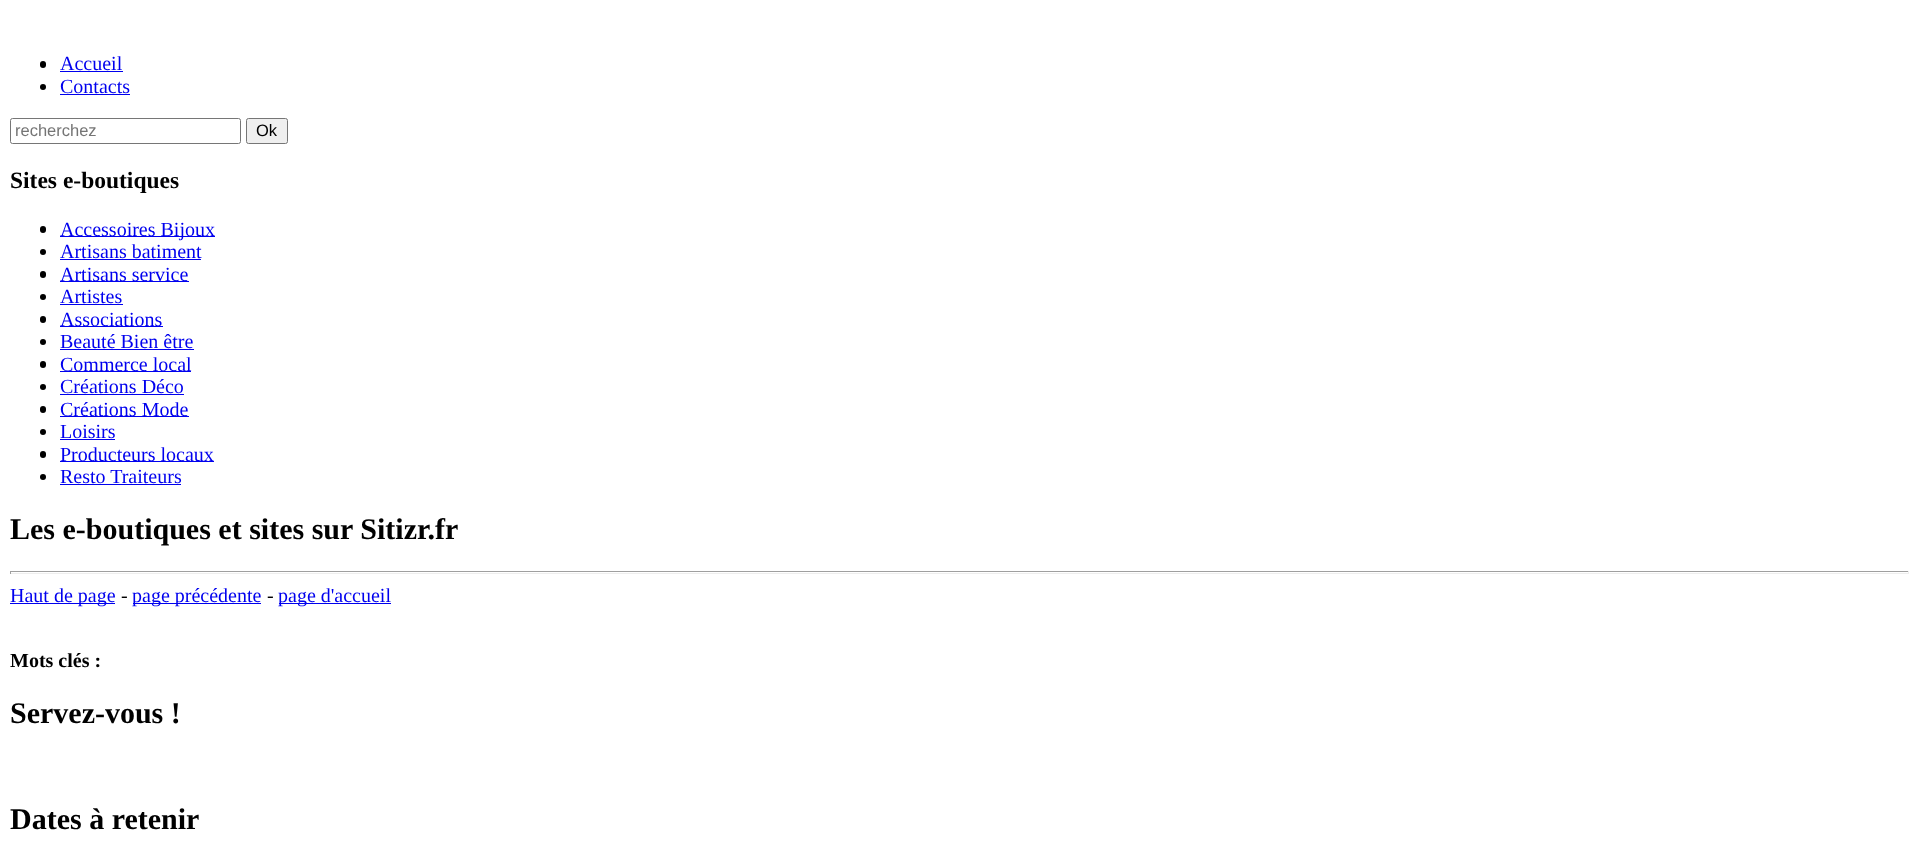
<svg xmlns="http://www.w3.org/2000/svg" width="1918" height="855">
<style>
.a{font:20px Liberation Serif;fill:#00e}
.b{font:16.5px Liberation Sans;fill:#757575}
.c{font:16.5px Liberation Sans;fill:#000}
.d{font:bold 23.5px Liberation Serif;fill:#000}
.e{font:bold 30px Liberation Serif;fill:#000}
.f{font:20px Liberation Serif;fill:#000}
.g{font:bold 20px Liberation Serif;fill:#000}
</style>
<rect width="100%" height="100%" fill="#fff"/>
<rect fill="#000" x="40" y="61" width="6" height="7" rx="3"/>
<path fill="#00e" d="M60 71h63v1H60z"/>
<circle fill="#000" cx="43" cy="87" r="3"/>
<path fill="#00e" d="M60 94h70v1H60z"/>
<rect fill="none" stroke="#767676" x="10.5" y="118.5" width="230" height="25" rx="2"/>
<rect fill="#efefef" stroke="#767676" x="246.5" y="118.5" width="41" height="25" rx="2"/>
<rect fill="#000" x="40" y="226" width="6" height="7" rx="3"/>
<path fill="#00e" d="M60 236h155v1H60z"/>
<circle fill="#000" cx="43" cy="252" r="3"/>
<path fill="#00e" d="M60 259h141v1H60z"/>
<rect fill="#000" x="40" y="271" width="6" height="7" rx="3"/>
<path fill="#00e" d="M60 281h129v1H60z"/>
<circle fill="#000" cx="43" cy="297" r="3"/>
<path fill="#00e" d="M60 304h63v1H60z"/>
<rect fill="#000" x="40" y="316" width="6" height="7" rx="3"/>
<path fill="#00e" d="M60 326h103v1H60z"/>
<circle fill="#000" cx="43" cy="342" r="3"/>
<path fill="#00e" d="M60 349h134v1H60z"/>
<rect fill="#000" x="40" y="361" width="6" height="7" rx="3"/>
<path fill="#00e" d="M60 371h131v1H60z"/>
<circle fill="#000" cx="43" cy="387" r="3"/>
<path fill="#00e" d="M60 394h124v1H60z"/>
<rect fill="#000" x="40" y="406" width="6" height="7" rx="3"/>
<path fill="#00e" d="M60 416h129v1H60z"/>
<circle fill="#000" cx="43" cy="432" r="3"/>
<path fill="#00e" d="M60 439h55v1H60z"/>
<rect fill="#000" x="40" y="451" width="6" height="7" rx="3"/>
<path fill="#00e" d="M60 461h154v1H60z"/>
<circle fill="#000" cx="43" cy="477" r="3"/>
<path fill="#00e" d="M60 484h121v1H60z"/>
<path fill="#9f9f9f" d="M10 571h1899v1H10z"/>
<path fill="#eee" d="M1908 571h1v3H1908z"/>
<path fill="#eee" d="M10 573h1899v1H10z"/>
<path fill="#9f9f9f" d="M10 571h1v3H10z"/>
<path fill="#00e" d="M10 603h105v1H10z"/>
<path fill="#00e" d="M133 603h128v1H133z"/>
<path fill="#00e" d="M279 603h112v1H279z"/>
<text class="a" x="60" y="70">Accueil</text>
<text class="a" x="60" y="93">Contacts</text>
<text class="b" x="15" y="136">recherchez</text>
<text class="c" x="256" y="136">Ok</text>
<text class="d" x="10" y="188">Sites e-boutiques</text>
<text class="a" x="60" y="236">Accessoires Bijoux</text>
<text class="a" x="60" y="258">Artisans batiment</text>
<text class="a" x="60" y="281">Artisans service</text>
<text class="a" x="60" y="303">Artistes</text>
<text class="a" x="60" y="326">Associations</text>
<text class="a" x="60" y="348">Beauté Bien être</text>
<text class="a" x="60" y="371">Commerce local</text>
<text class="a" x="60" y="393">Créations Déco</text>
<text class="a" x="60" y="416">Créations Mode</text>
<text class="a" x="60" y="438">Loisirs</text>
<text class="a" x="60" y="461">Producteurs locaux</text>
<text class="a" x="60" y="483">Resto Traiteurs</text>
<text class="e" x="10" y="539">Les e-boutiques et sites sur Sitizr.fr</text>
<text class="a" x="10" y="602">Haut de page</text>
<text class="f" x="121" y="602">-</text>
<text class="a" x="132" y="602">page précédente</text>
<text class="f" x="267" y="602">-</text>
<text class="a" x="278" y="602">page d'accueil</text>
<text class="g" x="10" y="667">Mots clés :</text>
<text class="e" x="10" y="723">Servez-vous !</text>
<text class="e" x="10" y="829">Dates à retenir</text>
</svg>
